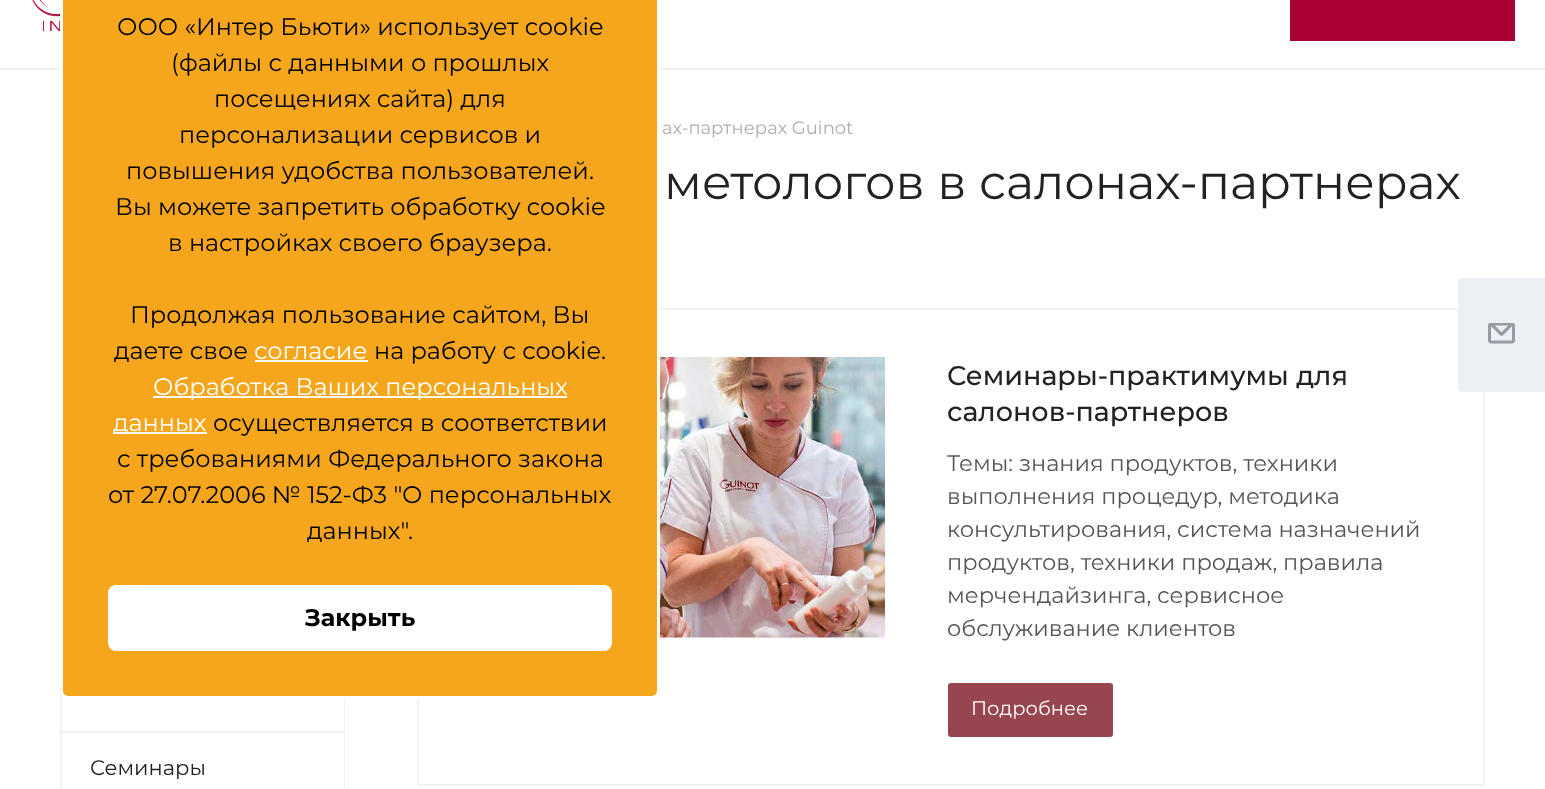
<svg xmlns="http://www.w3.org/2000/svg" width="1545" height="789">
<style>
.a{font:24px Montserrat;fill:#000}
.b{font:24px Montserrat;fill:#fff}
.c{font:bold 24px Montserrat;fill:#000}
.d{font:18px Montserrat;fill:#aeaeae}
.e{font:48px Montserrat;fill:#222}
.f{font:500 27px Montserrat;fill:#222}
.g{font:22.5px Montserrat;fill:#555}
.h{font:19.5px Montserrat;fill:#fff}
.i{font:21px Montserrat;fill:#222}
</style>
<rect width="100%" height="100%" fill="#fff"/>
<image href="1.png" x="32" y="0" width="28" height="32"/>
<path fill="#ab0033" d="M1290 0h225v41H1290z"/>
<path fill="#f0f0f0" d="M0 68h1545v2H0z"/>
<path fill="none" stroke="#f2f2f2" stroke-width="2" d="M418 309h1066v476H418z"/>
<path fill="#f2f2f2" d="M60 691h2v40H60z"/>
<rect fill="#f5a61c" stroke="#fff" stroke-width="3" x="61.5" y="-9.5" width="597" height="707" rx="6.5"/>
<path fill="#fff" d="M255 360h113v2H255z"/>
<path fill="#fff" d="M153 396h414v2H153z"/>
<path fill="#fff" d="M113 432h94v2H113z"/>
<rect fill="#fff" x="108" y="585" width="504" height="66" rx="8"/>
<image href="2.png" x="660" y="357" width="225" height="281"/>
<rect fill="#97464f" stroke="#97464f" stroke-width="2" x="949" y="684" width="163" height="52" rx="2"/>
<path fill="#f2f2f2" d="M344 699h1v32H344z"/>
<path fill="#f2f2f2" d="M60 731h285v2H60z"/>
<path fill="#f2f2f2" d="M344 731h1v58H344z"/>
<path fill="#f2f2f2" d="M60 731h2v58H60z"/>
<path fill="#edf0f3" d="M1461 278h84v114h-84c-1.5 0-3-1.5-3-3v-108c0-1.5 1.5-3 3-3z"/>
<image href="3.png" x="1488" y="323" width="27" height="21"/>
<text class="a" x="117" y="35">ООО «Интер Бьюти» использует cookie</text>
<text class="a" x="171" y="71">(файлы с данными о прошлых</text>
<text class="a" x="214" y="107">посещениях сайта) для</text>
<text class="a" x="179" y="143">персонализации сервисов и</text>
<text class="a" x="126" y="179">повышения удобства пользователей.</text>
<text class="a" x="115" y="215">Вы можете запретить обработку cookie</text>
<text class="a" x="168" y="251">в настройках своего браузера.</text>
<text class="a" x="130" y="323">Продолжая пользование сайтом, Вы</text>
<text class="a" x="114" y="359">даете свое</text>
<text class="b" x="254" y="359">согласие</text>
<text class="a" x="374" y="359">на работу с cookie.</text>
<text class="b" x="153" y="395">Обработка Ваших персональных</text>
<text class="b" x="113" y="431">данных</text>
<text class="a" x="213" y="431">осуществляется в соответствии</text>
<text class="a" x="117" y="467">с требованиями Федерального закона</text>
<text class="a" x="108" y="503">от 27.07.2006 № 152-Ф3 "О персональных</text>
<text class="a" x="307" y="539">данных".</text>
<text class="c" x="305" y="626">Закрыть</text>
<text class="d" x="662" y="134">ах-партнерах Guinot</text>
<text class="e" x="664" y="199">метологов в салонах-партнерах</text>
<text class="f" x="947" y="385">Семинары-практимумы для</text>
<text class="f" x="947" y="421">салонов-партнеров</text>
<text class="g" x="947" y="471">Темы: знания продуктов, техники</text>
<text class="g" x="947" y="504">выполнения процедур, методика</text>
<text class="g" x="947" y="537">консультирования, система назначений</text>
<text class="g" x="947" y="570">продуктов, техники продаж, правила</text>
<text class="g" x="947" y="603">мерчендайзинга, сервисное</text>
<text class="g" x="947" y="636">обслуживание клиентов</text>
<text class="h" x="971" y="715">Подробнее</text>
<text class="i" x="90" y="775">Семинары</text>
</svg>
